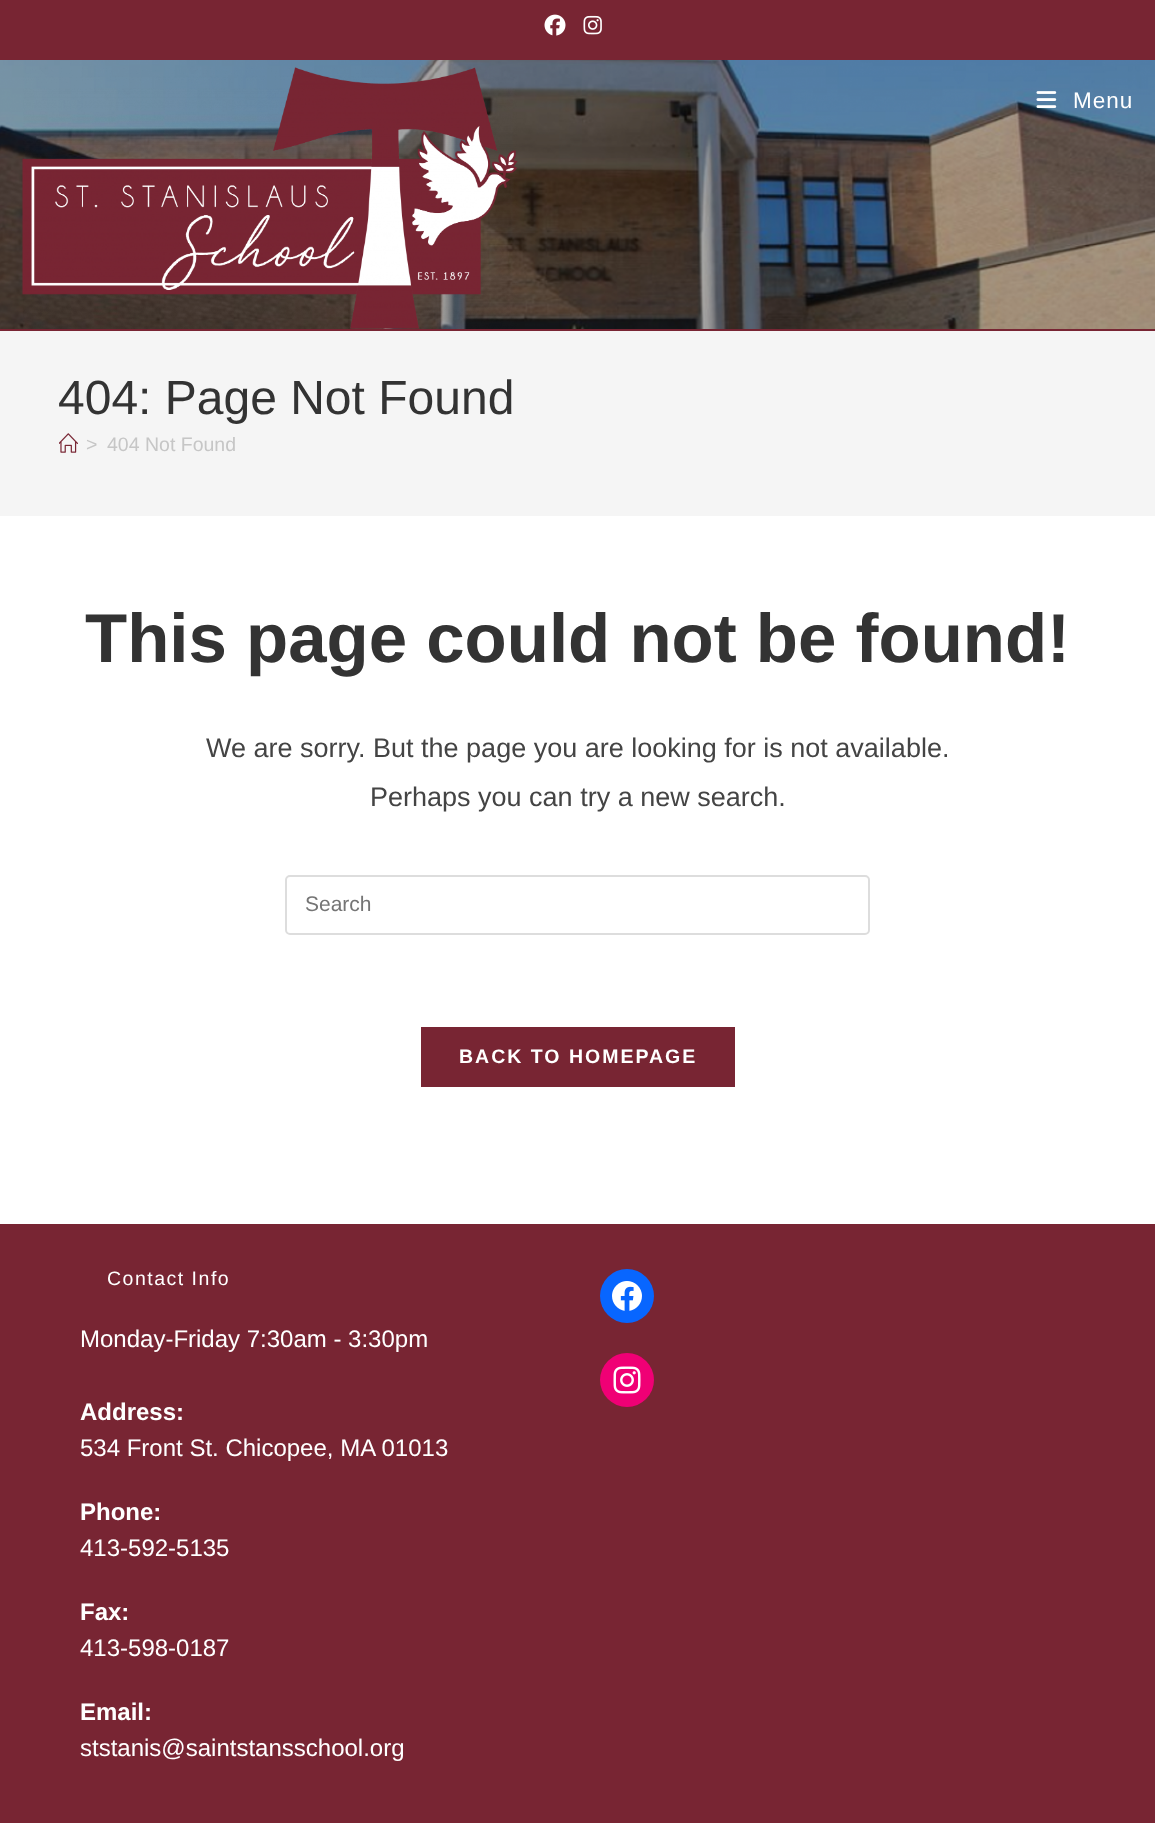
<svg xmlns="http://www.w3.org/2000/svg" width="1155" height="1823">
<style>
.a{font:22.5px Liberation Sans;letter-spacing:1px;fill:#fff}
.b{font:48px Liberation Sans;fill:#333}
.c{font:19.5px Liberation Sans;fill:#c6c6c6}
.d{font:bold 69px Liberation Sans;fill:#333}
.e{font:27px Liberation Sans;fill:#444}
.f{font:21px Liberation Sans;fill:#757575}
.g{font:bold 19.5px Liberation Sans;letter-spacing:2px;fill:#fff}
.h{font:19.5px Liberation Sans;letter-spacing:1.5px;fill:#fff}
.i{font:24px Liberation Sans;fill:#fff}
.j{font:bold 24px Liberation Sans;fill:#fff}
</style>
<rect width="100%" height="100%" fill="#fff"/>
<path fill="#782533" d="M0 0h1155v60H0z"/>
<image href="1.png" x="544" y="14" width="22" height="22"/>
<image href="2.png" x="583" y="15" width="19" height="20"/>
<image href="3.png" x="0" y="60" width="1155" height="269"/>
<path fill="#782533" d="M0 329h1155v2H0z"/>
<image href="4.png" x="22" y="67" width="496" height="262"/>
<image href="5.png" x="1036" y="91" width="21" height="17"/>
<path fill="#f5f5f5" d="M0 331h1155v185H0z"/>
<image href="6.png" x="59" y="433" width="19" height="20"/>
<rect fill="none" stroke="#ddd" stroke-width="2" x="286" y="876" width="583" height="58" rx="4"/>
<path fill="#782533" d="M421 1027h314v60H421z"/>
<path fill="#782533" d="M0 1224h1155v599H0z"/>
<circle fill="#0866ff" cx="627" cy="1296" r="27"/>
<image href="7.png" x="612" y="1281" width="30" height="30"/>
<circle fill="#f00075" cx="627" cy="1380" r="27"/>
<image href="8.png" x="613" y="1366" width="28" height="28"/>
<text class="a" x="1073" y="108">Menu</text>
<text class="b" x="58" y="414">404: Page Not Found</text>
<text class="c" x="86" y="451">&gt;</text>
<text class="c" x="107" y="451">404 Not Found</text>
<text class="d" x="85" y="662">This page could not be found!</text>
<text class="e" x="206" y="757">We are sorry. But the page you are looking for is not available.</text>
<text class="e" x="370" y="806">Perhaps you can try a new search.</text>
<text class="f" x="305" y="911">Search</text>
<text class="g" x="459" y="1063">BACK TO HOMEPAGE</text>
<text class="h" x="107" y="1285">Contact Info</text>
<text class="i" x="80" y="1347">Monday-Friday 7:30am - 3:30pm</text>
<text class="j" x="80" y="1420">Address:</text>
<text class="i" x="80" y="1456">534 Front St. Chicopee, MA 01013</text>
<text class="j" x="80" y="1520">Phone:</text>
<text class="i" x="80" y="1556">413-592-5135</text>
<text class="j" x="80" y="1620">Fax:</text>
<text class="i" x="80" y="1656">413-598-0187</text>
<text class="j" x="80" y="1720">Email:</text>
<text class="i" x="80" y="1756">ststanis@saintstansschool.org</text>
</svg>
